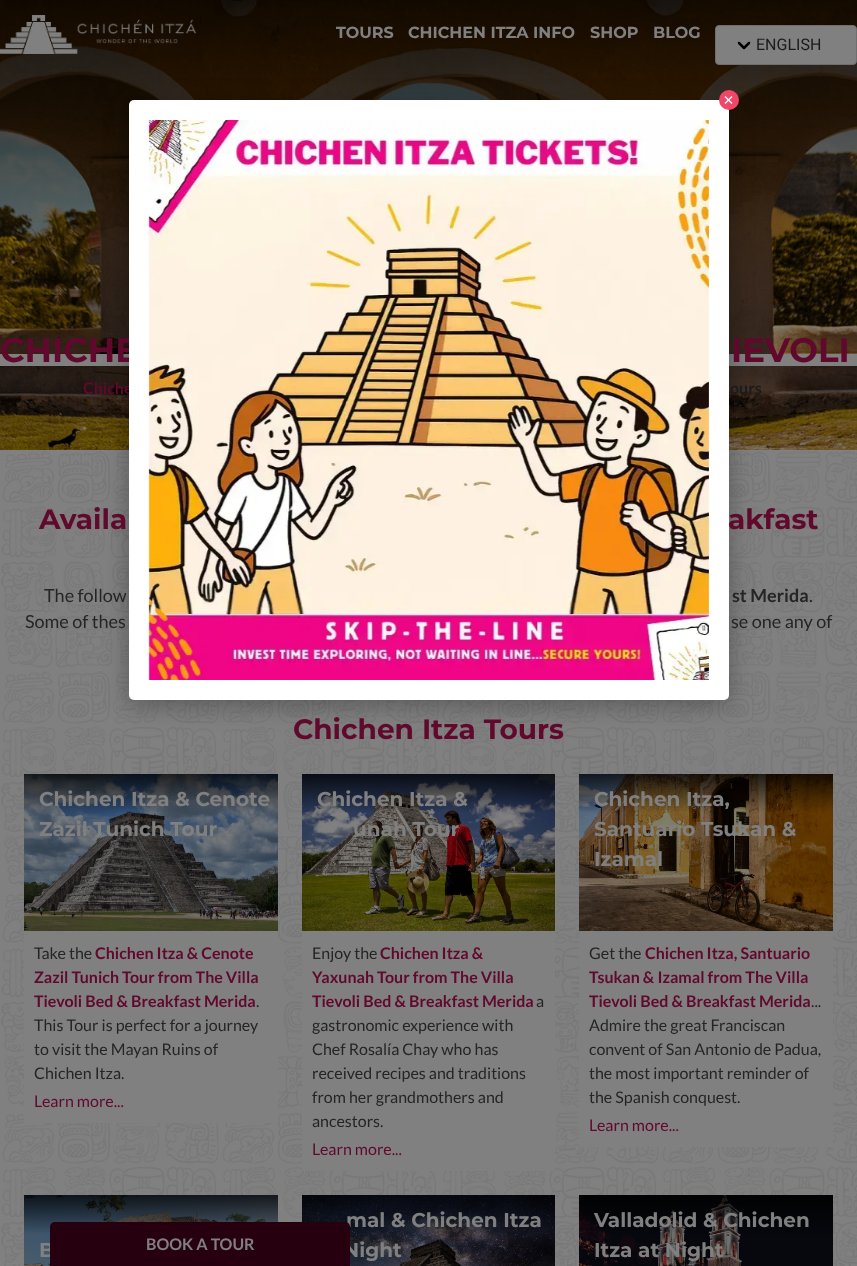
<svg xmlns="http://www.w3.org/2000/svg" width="857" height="1266">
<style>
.a{font:bold 16px Montserrat;fill:#808080}
.b{font:16px Roboto;fill:#1b1b1b}
.c{font:bold 34px Montserrat;fill:#61082d}
.d{font:bold 16px Lato;fill:#61082d}
.e{font:bold 16px Lato;fill:#1b1b1b}
.f{font:bold 28px Montserrat;fill:#61082d}
.g{font:18px Lato;fill:#252525}
.h{font:bold 18px Lato;fill:#252525}
.i{font:bold 20px Montserrat;fill:#808080}
.j{font:16px Lato;fill:#252525}
.k{font:16px Lato;fill:#61082d}
.l{font:bold 16px Lato;fill:#808080}
</style>
<rect width="100%" height="100%" fill="#808080"/>
<image href="3.png" x="0" y="0" width="857" height="450"/>
<image href="1.png" x="0" y="15" width="196" height="39"/>
<rect fill="#808080" stroke="#6e6e6e" x="715.5" y="25.5" width="141" height="39" rx="3.5"/>
<path fill="none" stroke="#000" stroke-width="2.5" stroke-linecap="round" stroke-linejoin="round" d="M739 43l5 5m0 0l5-5"/>
<path fill="#808080" d="M0 354h857v12H0z"/>
<image href="4.png" x="1" y="451" width="856" height="815"/>
<rect fill="#0000004d" filter="blur(12.5px)" x="129" y="105" width="600" height="600" rx="5"/>
<image href="5.png" x="24" y="774" width="254" height="157"/>
<path fill="#808080" d="M24 931h254v192H24z"/>
<image href="6.png" x="302" y="774" width="253" height="157"/>
<path fill="#808080" d="M302 931h253v240H302z"/>
<image href="7.png" x="579" y="774" width="254" height="157"/>
<path fill="#808080" d="M579 931h254v216H579z"/>
<image href="8.png" x="24" y="1195" width="254" height="71"/>
<image href="9.png" x="302" y="1195" width="253" height="71"/>
<image href="10.png" x="579" y="1195" width="254" height="71"/>
<text class="a" x="336" y="38">TOURS</text>
<text class="a" x="408" y="38">CHICHEN ITZA INFO</text>
<text class="a" x="590" y="38">SHOP</text>
<text class="a" x="653" y="38">BLOG</text>
<text class="b" x="756" y="50">ENGLISH</text>
<text class="c" x="0" y="362">CHICHE</text>
<text class="c" x="731" y="362">IEVOLI</text>
<text class="d" x="83" y="394">Chiche</text>
<text class="e" x="730" y="394">ours</text>
<text class="f" x="39" y="529">Availa</text>
<text class="f" x="728" y="529">akfast</text>
<rect fill="#fff" x="129" y="100" width="600" height="600" rx="5"/>
<circle fill="#f14668" cx="729" cy="100" r="10"/>
<path fill="#fff" d="M725.5 96l7 7l-1 1l-7-7z"/>
<path fill="#fff" d="M731.5 96l1 1l-7 7l-1-1z"/>
<image href="2.png" x="148" y="120" width="561" height="560"/>
<text class="g" x="44" y="602">The follow</text>
<text class="h" x="732" y="602">st Merida</text>
<text class="g" x="809" y="602">.</text>
<text class="g" x="25" y="628">Some of thes</text>
<text class="g" x="731" y="628">se one any of</text>
<text class="f" x="293" y="739">Chichen Itza Tours</text>
<text class="i" x="39" y="806">Chichen Itza &amp; Cenote</text>
<text class="i" x="39" y="836">Zazil Tunich Tour</text>
<text class="j" x="34" y="959">Take the</text>
<text class="d" x="95" y="959">Chichen Itza &amp; Cenote</text>
<text class="d" x="34" y="983">Zazil Tunich Tour from The Villa</text>
<text class="d" x="34" y="1007">Tievoli Bed &amp; Breakfast Merida</text>
<text class="j" x="256" y="1007">.</text>
<text class="j" x="34" y="1031">This Tour is perfect for a journey</text>
<text class="j" x="34" y="1055">to visit the Mayan Ruins of</text>
<text class="j" x="34" y="1079">Chichen Itza.</text>
<text class="k" x="34" y="1107">Learn more...</text>
<text class="i" x="317" y="806">Chichen Itza &amp;</text>
<text class="i" x="353" y="836">unah Tour</text>
<text class="j" x="312" y="959">Enjoy the</text>
<text class="d" x="380" y="959">Chichen Itza &amp;</text>
<text class="d" x="312" y="983">Yaxunah Tour from The Villa</text>
<text class="d" x="312" y="1007">Tievoli Bed &amp; Breakfast Merida</text>
<text class="j" x="536" y="1007">a</text>
<text class="j" x="312" y="1031">gastronomic experience with</text>
<text class="j" x="312" y="1055">Chef Rosalía Chay who has</text>
<text class="j" x="312" y="1079">received recipes and traditions</text>
<text class="j" x="312" y="1103">from her grandmothers and</text>
<text class="j" x="312" y="1127">ancestors.</text>
<text class="k" x="312" y="1155">Learn more...</text>
<text class="i" x="594" y="806">Chichen Itza,</text>
<text class="i" x="594" y="836">Santuario Tsukan &amp;</text>
<text class="i" x="594" y="866">Izamal</text>
<text class="j" x="589" y="959">Get the</text>
<text class="d" x="645" y="959">Chichen Itza, Santuario</text>
<text class="d" x="589" y="983">Tsukan &amp; Izamal from The Villa</text>
<text class="d" x="589" y="1007">Tievoli Bed &amp; Breakfast Merida</text>
<text class="j" x="811" y="1007">...</text>
<text class="j" x="589" y="1031">Admire the great Franciscan</text>
<text class="j" x="589" y="1055">convent of San Antonio de Padua,</text>
<text class="j" x="589" y="1079">the most important reminder of</text>
<text class="j" x="589" y="1103">the Spanish conquest.</text>
<text class="k" x="589" y="1131">Learn more...</text>
<text class="i" x="39" y="1257">B</text>
<text class="i" x="346" y="1227">mal &amp; Chichen Itza</text>
<text class="i" x="343" y="1257">Night</text>
<text class="i" x="594" y="1227">Valladolid &amp; Chichen</text>
<text class="i" x="594" y="1257">Itza at Night</text>
<path fill="#270010" d="M55 1222h290c3 0 5 2 5 5v39h-300v-39c0-3 2-5 5-5z"/>
<text class="l" x="146" y="1250">BOOK A TOUR</text>
</svg>
